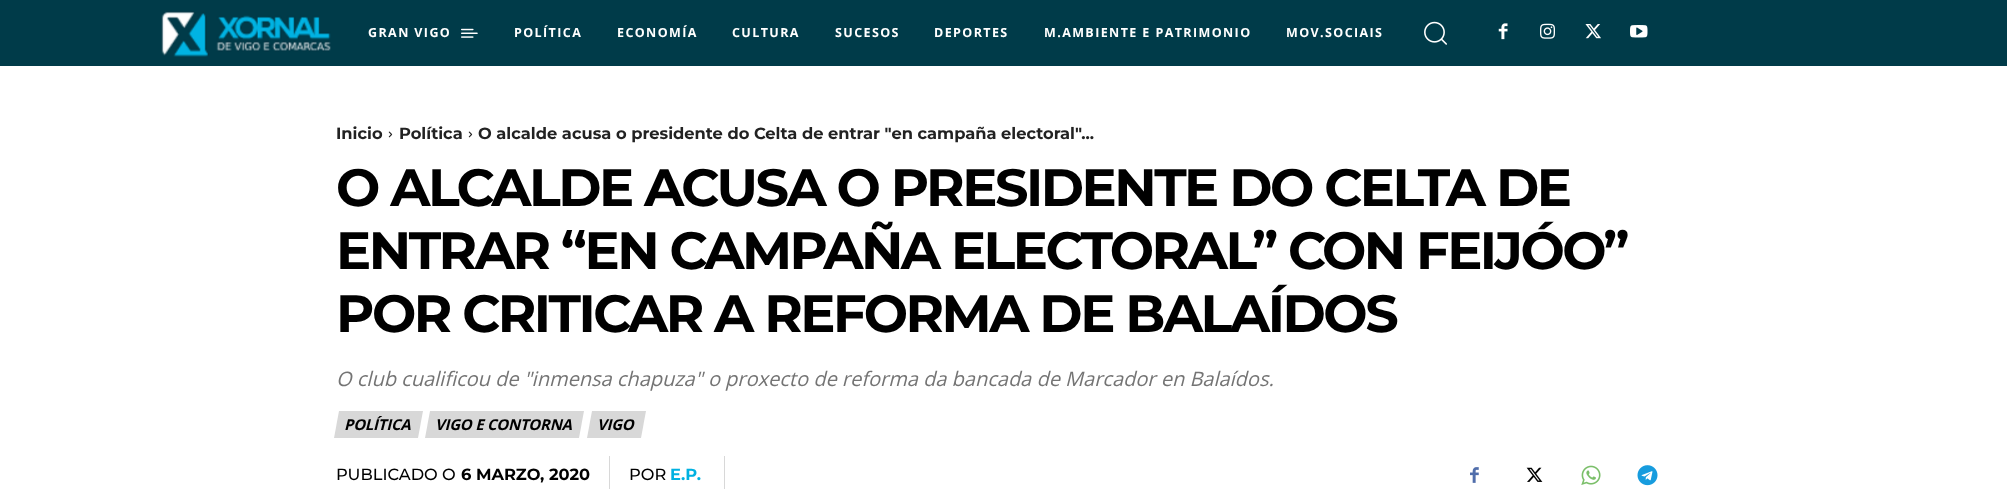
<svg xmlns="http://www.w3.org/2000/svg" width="2007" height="489">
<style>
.a{font:bold 12.5px Open Sans;letter-spacing:1.4px;fill:#fff}
.b{font:bold 16.25px Montserrat;fill:#222}
.c{font:bold 52.5px Montserrat;letter-spacing:-2.5px;fill:#000}
.d{font:italic 20px Open Sans;fill:#747474}
.e{font:italic bold 15px Open Sans;letter-spacing:-0.25px;fill:#000}
.f{font:500 16.25px Montserrat;fill:#000}
.g{font:bold 16.25px Montserrat;fill:#000}
.h{font:bold 16.25px Montserrat;fill:#00b1e1}
</style>
<rect width="100%" height="100%" fill="#fff"/>
<path fill="#003b49" d="M0 0h2007v66H0z"/>
<image href="1.png" x="161" y="11" width="170" height="46"/>
<image href="2.png" x="461" y="28" width="17" height="10"/>
<image href="3.png" x="1424" y="21" width="23" height="24"/>
<image href="4.png" x="1498" y="23" width="10" height="17"/>
<image href="5.png" x="1540" y="23" width="15" height="16"/>
<image href="6.png" x="1585" y="24" width="16" height="15"/>
<image href="7.png" x="1630" y="25" width="18" height="13"/>
<image href="8.png" x="388" y="131" width="5" height="7"/>
<image href="8.png" x="468" y="131" width="5" height="7"/>
<path fill="#d8d8d8" d="M339 411h84l-5 27h-84z"/>
<path fill="#d8d8d8" d="M430 411h154l-5 27h-154z"/>
<path fill="#d8d8d8" d="M592 411h54l-5 27h-54z"/>
<path fill="#d8d8d8" d="M609 456h1v33H609z"/>
<path fill="#d8d8d8" d="M724 456h1v33H724z"/>
<image href="9.png" x="1470" y="467" width="9" height="16"/>
<image href="10.png" x="1526" y="467" width="17" height="15"/>
<image href="11.png" x="1581" y="465" width="20" height="20"/>
<image href="12.png" x="1637" y="465" width="21" height="21"/>
<text class="a" x="368" y="37">GRAN VIGO</text>
<text class="a" x="514" y="37">POLÍTICA</text>
<text class="a" x="617" y="37">ECONOMÍA</text>
<text class="a" x="732" y="37">CULTURA</text>
<text class="a" x="835" y="37">SUCESOS</text>
<text class="a" x="934" y="37">DEPORTES</text>
<text class="a" x="1044" y="37">M.AMBIENTE E PATRIMONIO</text>
<text class="a" x="1286" y="37">MOV.SOCIAIS</text>
<text class="b" x="336" y="139">Inicio</text>
<text class="b" x="399" y="139">Política</text>
<text class="b" x="478" y="139">O alcalde acusa o presidente do Celta de entrar "en campaña electoral"...</text>
<text class="c" x="336" y="206">O ALCALDE ACUSA O PRESIDENTE DO CELTA DE</text>
<text class="c" x="336" y="269">ENTRAR “EN CAMPAÑA ELECTORAL” CON FEIJÓO”</text>
<text class="c" x="336" y="332">POR CRITICAR A REFORMA DE BALAÍDOS</text>
<text class="d" x="336" y="386">O club cualificou de "inmensa chapuza" o proxecto de reforma da bancada de Marcador en Balaídos.</text>
<text class="e" x="344" y="430">POLÍTICA</text>
<text class="e" x="435" y="430">VIGO E CONTORNA</text>
<text class="e" x="597" y="430">VIGO</text>
<text class="f" x="336" y="480">PUBLICADO O</text>
<text class="g" x="461" y="480">6 MARZO, 2020</text>
<text class="f" x="629" y="480">POR</text>
<text class="h" x="670" y="480">E.P.</text>
</svg>
